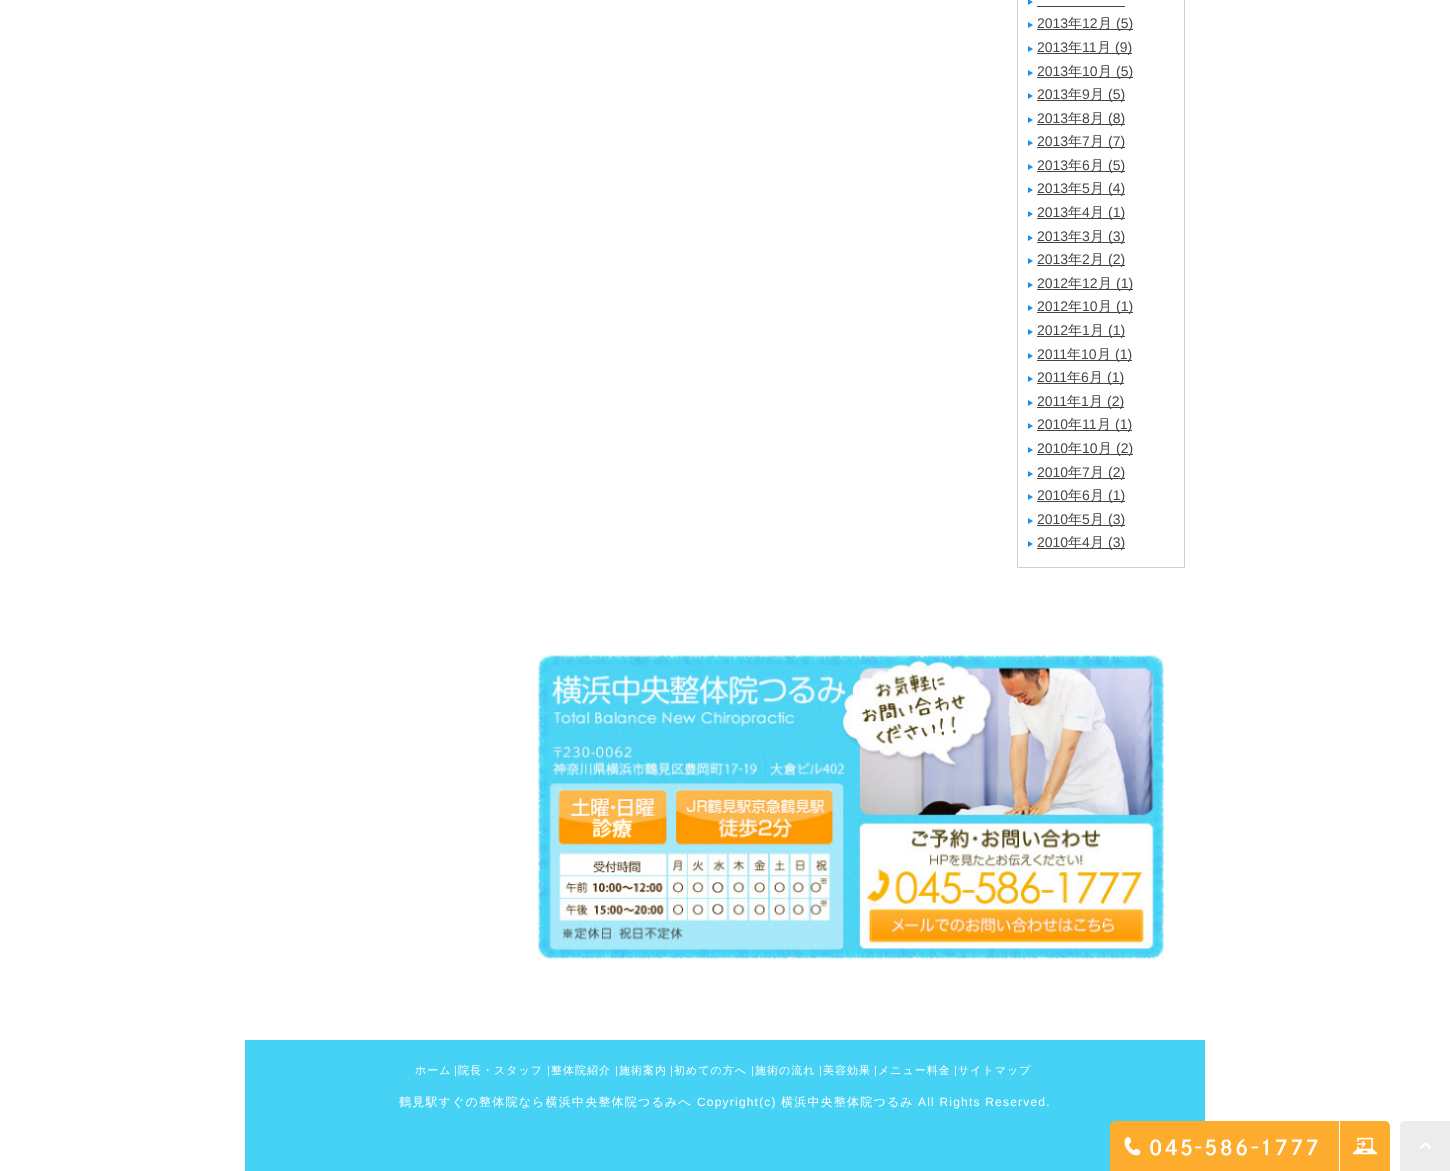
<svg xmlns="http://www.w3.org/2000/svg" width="1450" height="1171">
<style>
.a{font:14px Liberation Sans;fill:#454545}
.b{font:500 14px WenQuanYi Zen Hei;fill:#454545}
.c{font:500 11px WenQuanYi Zen Hei;letter-spacing:1px;fill:#fff}
.d{font:11px Liberation Sans;letter-spacing:1px;fill:#fff}
.e{font:500 12px WenQuanYi Zen Hei;letter-spacing:1.2px;fill:#fff}
.f{font:12px Liberation Sans;letter-spacing:1.2px;fill:#fff}
</style>
<rect width="100%" height="100%" fill="#fff"/>
<path fill="none" stroke="#bfd4e4" d="M1017.5 -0.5h167v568H1017.5z"/>
<path fill="#0f92f7" d="M1028 5v-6l5 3zm0 23v-6l5 3zm0 24v-6l5 3z"/>
<path fill="#454545" d="M1037 6h88v1H1037z"/>
<path fill="#454545" d="M1037 29h96v1H1037z"/>
<path fill="#454545" d="M1037 53h95v1H1037z"/>
<path fill="#0f92f7" d="M1028 76v-6l5 3zm0 23v-6l5 3zm0 24v-6l5 3z"/>
<path fill="#454545" d="M1037 77h96v1H1037z"/>
<path fill="#454545" d="M1037 100h88v1H1037z"/>
<path fill="#454545" d="M1037 124h88v1H1037z"/>
<path fill="#0f92f7" d="M1028 146v-6l5 3zm0 24v-6l5 3zm0 23v-6l5 3z"/>
<path fill="#454545" d="M1037 147h88v1H1037z"/>
<path fill="#454545" d="M1037 171h88v1H1037z"/>
<path fill="#454545" d="M1037 194h88v1H1037z"/>
<path fill="#0f92f7" d="M1028 217v-6l5 3zm0 24v-6l5 3zm0 23v-6l5 3z"/>
<path fill="#454545" d="M1037 218h88v1H1037z"/>
<path fill="#454545" d="M1037 242h88v1H1037z"/>
<path fill="#454545" d="M1037 265h88v1H1037z"/>
<path fill="#0f92f7" d="M1028 288v-6l5 3zm0 23v-6l5 3zm0 24v-6l5 3z"/>
<path fill="#454545" d="M1037 289h96v1H1037z"/>
<path fill="#454545" d="M1037 312h96v1H1037z"/>
<path fill="#454545" d="M1037 336h88v1H1037z"/>
<path fill="#0f92f7" d="M1028 359v-6l5 3zm0 23v-6l5 3zm0 24v-6l5 3z"/>
<path fill="#454545" d="M1037 360h95v1H1037z"/>
<path fill="#454545" d="M1037 383h87v1H1037z"/>
<path fill="#454545" d="M1037 407h87v1H1037z"/>
<path fill="#0f92f7" d="M1028 429v-6l5 3zm0 24v-6l5 3zm0 24v-6l5 3z"/>
<path fill="#454545" d="M1037 430h95v1H1037z"/>
<path fill="#454545" d="M1037 454h96v1H1037z"/>
<path fill="#454545" d="M1037 478h88v1H1037z"/>
<path fill="#0f92f7" d="M1028 500v-6l5 3zm0 24v-6l5 3zm0 23v-6l5 3z"/>
<path fill="#454545" d="M1037 501h88v1H1037z"/>
<path fill="#454545" d="M1037 525h88v1H1037z"/>
<path fill="#454545" d="M1037 548h88v1H1037z"/>
<image href="1.png" x="537" y="654" width="628" height="306"/>
<path fill="#45d2f5" d="M245 1040h960v131H245z"/>
<image href="2.png" x="1110" y="1121" width="229" height="50"/>
<image href="3.png" x="1340" y="1121" width="50" height="50"/>
<image href="4.png" x="1400" y="1121" width="50" height="50"/>
<text class="a" x="1037" y="28">2013</text>
<text class="b" x="1068" y="28">年</text>
<text class="a" x="1082" y="28">12</text>
<text class="b" x="1098" y="28">月</text>
<text class="a" x="1116" y="28">(5)</text>
<text class="a" x="1037" y="52">2013</text>
<text class="b" x="1068" y="52">年</text>
<text class="a" x="1082" y="52">11</text>
<text class="b" x="1097" y="52">月</text>
<text class="a" x="1115" y="52">(9)</text>
<text class="a" x="1037" y="76">2013</text>
<text class="b" x="1068" y="76">年</text>
<text class="a" x="1082" y="76">10</text>
<text class="b" x="1098" y="76">月</text>
<text class="a" x="1116" y="76">(5)</text>
<text class="a" x="1037" y="99">2013</text>
<text class="b" x="1068" y="99">年</text>
<text class="a" x="1082" y="99">9</text>
<text class="b" x="1090" y="99">月</text>
<text class="a" x="1108" y="99">(5)</text>
<text class="a" x="1037" y="123">2013</text>
<text class="b" x="1068" y="123">年</text>
<text class="a" x="1082" y="123">8</text>
<text class="b" x="1090" y="123">月</text>
<text class="a" x="1108" y="123">(8)</text>
<text class="a" x="1037" y="146">2013</text>
<text class="b" x="1068" y="146">年</text>
<text class="a" x="1082" y="146">7</text>
<text class="b" x="1090" y="146">月</text>
<text class="a" x="1108" y="146">(7)</text>
<text class="a" x="1037" y="170">2013</text>
<text class="b" x="1068" y="170">年</text>
<text class="a" x="1082" y="170">6</text>
<text class="b" x="1090" y="170">月</text>
<text class="a" x="1108" y="170">(5)</text>
<text class="a" x="1037" y="193">2013</text>
<text class="b" x="1068" y="193">年</text>
<text class="a" x="1082" y="193">5</text>
<text class="b" x="1090" y="193">月</text>
<text class="a" x="1108" y="193">(4)</text>
<text class="a" x="1037" y="217">2013</text>
<text class="b" x="1068" y="217">年</text>
<text class="a" x="1082" y="217">4</text>
<text class="b" x="1090" y="217">月</text>
<text class="a" x="1108" y="217">(1)</text>
<text class="a" x="1037" y="241">2013</text>
<text class="b" x="1068" y="241">年</text>
<text class="a" x="1082" y="241">3</text>
<text class="b" x="1090" y="241">月</text>
<text class="a" x="1108" y="241">(3)</text>
<text class="a" x="1037" y="264">2013</text>
<text class="b" x="1068" y="264">年</text>
<text class="a" x="1082" y="264">2</text>
<text class="b" x="1090" y="264">月</text>
<text class="a" x="1108" y="264">(2)</text>
<text class="a" x="1037" y="288">2012</text>
<text class="b" x="1068" y="288">年</text>
<text class="a" x="1082" y="288">12</text>
<text class="b" x="1098" y="288">月</text>
<text class="a" x="1116" y="288">(1)</text>
<text class="a" x="1037" y="311">2012</text>
<text class="b" x="1068" y="311">年</text>
<text class="a" x="1082" y="311">10</text>
<text class="b" x="1098" y="311">月</text>
<text class="a" x="1116" y="311">(1)</text>
<text class="a" x="1037" y="335">2012</text>
<text class="b" x="1068" y="335">年</text>
<text class="a" x="1082" y="335">1</text>
<text class="b" x="1090" y="335">月</text>
<text class="a" x="1108" y="335">(1)</text>
<text class="a" x="1037" y="359">2011</text>
<text class="b" x="1067" y="359">年</text>
<text class="a" x="1081" y="359">10</text>
<text class="b" x="1097" y="359">月</text>
<text class="a" x="1115" y="359">(1)</text>
<text class="a" x="1037" y="382">2011</text>
<text class="b" x="1067" y="382">年</text>
<text class="a" x="1081" y="382">6</text>
<text class="b" x="1089" y="382">月</text>
<text class="a" x="1107" y="382">(1)</text>
<text class="a" x="1037" y="406">2011</text>
<text class="b" x="1067" y="406">年</text>
<text class="a" x="1081" y="406">1</text>
<text class="b" x="1089" y="406">月</text>
<text class="a" x="1107" y="406">(2)</text>
<text class="a" x="1037" y="429">2010</text>
<text class="b" x="1068" y="429">年</text>
<text class="a" x="1082" y="429">11</text>
<text class="b" x="1097" y="429">月</text>
<text class="a" x="1115" y="429">(1)</text>
<text class="a" x="1037" y="453">2010</text>
<text class="b" x="1068" y="453">年</text>
<text class="a" x="1082" y="453">10</text>
<text class="b" x="1098" y="453">月</text>
<text class="a" x="1116" y="453">(2)</text>
<text class="a" x="1037" y="477">2010</text>
<text class="b" x="1068" y="477">年</text>
<text class="a" x="1082" y="477">7</text>
<text class="b" x="1090" y="477">月</text>
<text class="a" x="1108" y="477">(2)</text>
<text class="a" x="1037" y="500">2010</text>
<text class="b" x="1068" y="500">年</text>
<text class="a" x="1082" y="500">6</text>
<text class="b" x="1090" y="500">月</text>
<text class="a" x="1108" y="500">(1)</text>
<text class="a" x="1037" y="524">2010</text>
<text class="b" x="1068" y="524">年</text>
<text class="a" x="1082" y="524">5</text>
<text class="b" x="1090" y="524">月</text>
<text class="a" x="1108" y="524">(3)</text>
<text class="a" x="1037" y="547">2010</text>
<text class="b" x="1068" y="547">年</text>
<text class="a" x="1082" y="547">4</text>
<text class="b" x="1090" y="547">月</text>
<text class="a" x="1108" y="547">(3)</text>
<text class="c" x="415" y="1074">ホーム</text>
<text class="d" x="454" y="1074">|</text>
<text class="c" x="458" y="1074">院長・スタッフ</text>
<text class="d" x="547" y="1074">|</text>
<text class="c" x="551" y="1074">整体院紹介</text>
<text class="d" x="615" y="1074">|</text>
<text class="c" x="619" y="1074">施術案内</text>
<text class="d" x="670" y="1074">|</text>
<text class="c" x="674" y="1074">初めての方へ</text>
<text class="d" x="751" y="1074">|</text>
<text class="c" x="755" y="1074">施術の流れ</text>
<text class="d" x="819" y="1074">|</text>
<text class="c" x="823" y="1074">美容効果</text>
<text class="d" x="874" y="1074">|</text>
<text class="c" x="878" y="1074">メニュー料金</text>
<text class="d" x="954" y="1074">|</text>
<text class="c" x="958" y="1074">サイトマップ</text>
<text class="e" x="399" y="1106">鶴見駅すぐの整体院なら横浜中央整体院つるみへ</text>
<text class="f" x="697" y="1106">Copyright(c)</text>
<text class="e" x="781" y="1106">横浜中央整体院つるみ</text>
<text class="f" x="918" y="1106">All Rights Reserved.</text>
</svg>
